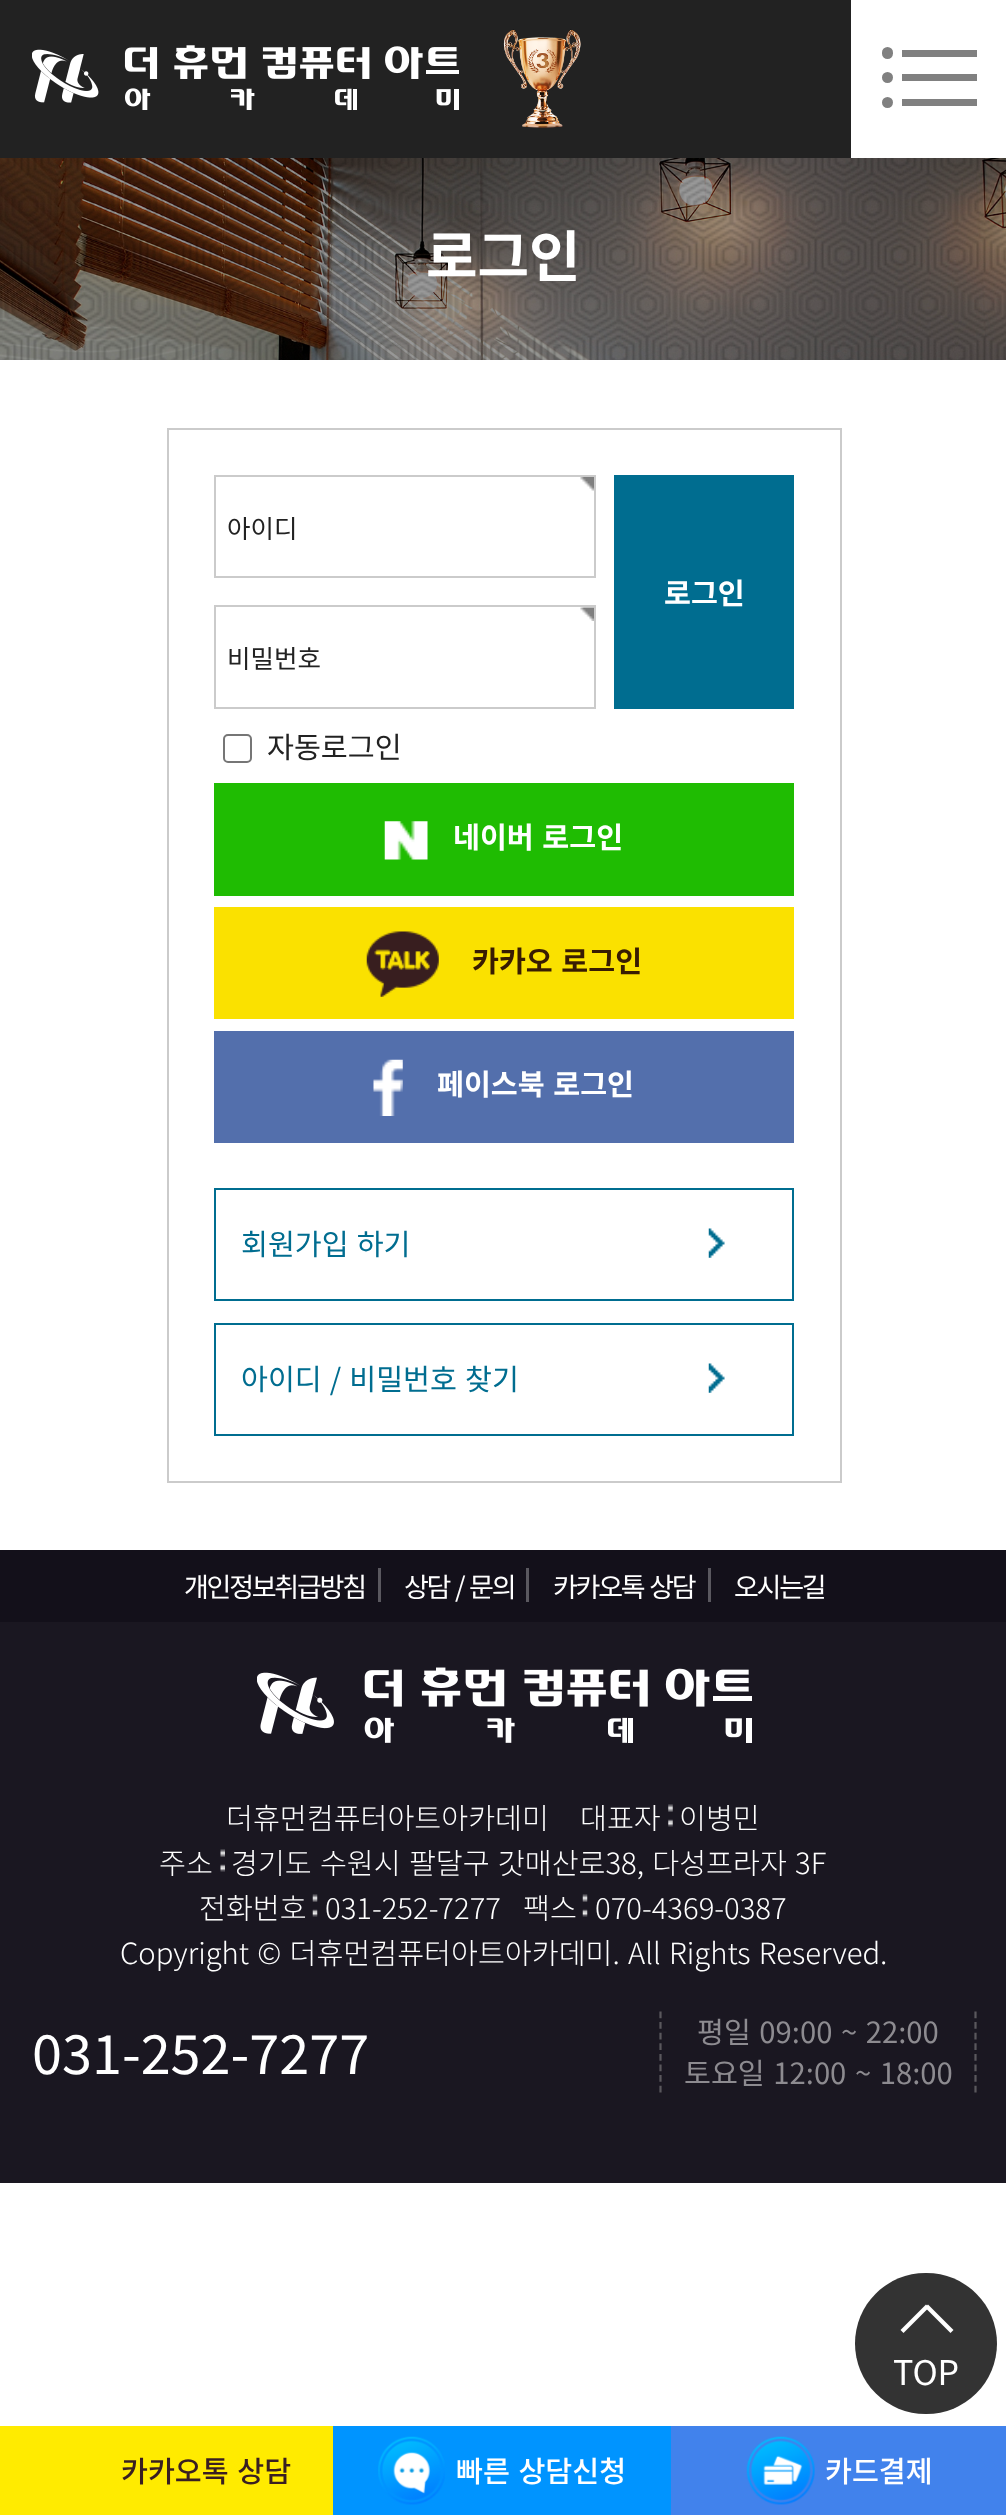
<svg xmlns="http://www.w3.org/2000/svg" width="1006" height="2515">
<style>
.a{font:bold 56px Noto Sans KR;fill:#fff}
.b{font:25.5px Noto Sans KR;fill:#222}
.c{font:bold 29.25px Noto Sans KR;fill:#fff}
.d{font:29.25px Noto Sans KR;fill:#222}
.e{font:bold 29.25px Noto Sans KR;fill:#381c02}
.f{font:29.25px Noto Sans KR;fill:#006d90}
.g{font:27px Noto Sans KR;letter-spacing:-2.25px;fill:#fff}
.h{font:300 29.25px Noto Sans KR;fill:#fff}
.i{font:54px Noto Sans KR;fill:#fff}
.j{font:29.25px Noto Sans KR;fill:#8d8b90}
.k{font:34px Noto Sans KR;fill:#fff}
.l{font:500 29.25px Noto Sans KR;fill:#391f22}
.m{font:500 29.25px Noto Sans KR;fill:#fff}
</style>
<rect width="100%" height="100%" fill="#fff"/>
<path fill="#222" d="M0 0h851v158H0z"/>
<image href="1.png" x="32" y="45" width="427" height="65"/>
<image href="2.png" x="503" y="29" width="78" height="99"/>
<rect fill="#808080" x="882" y="47" width="11" height="12" rx="5.5"/>
<path fill="#808080" d="M902 50h75v7H902z"/>
<circle fill="#808080" cx="887.5" cy="77.5" r="5.5"/>
<path fill="#808080" d="M902 74h75v7H902z"/>
<circle fill="#808080" cx="887.5" cy="102.5" r="5.5"/>
<path fill="#808080" d="M902 99h75v7H902z"/>
<image href="3.png" x="0" y="158" width="1006" height="202"/>
<image href="4.png" x="0" y="158" width="1006" height="202"/>
<path fill="none" stroke="#cbcbcb" stroke-width="2" d="M168 429h673v1053H168z"/>
<path fill="none" stroke="#cbcbcb" stroke-width="2" d="M215 476h380v101H215z"/>
<image href="5.png" x="580" y="477" width="14" height="14"/>
<path fill="#006d90" d="M614 475h180v234H614z"/>
<path fill="none" stroke="#cbcbcb" stroke-width="2" d="M215 606h380v102H215z"/>
<image href="6.png" x="580" y="607" width="14" height="14"/>
<rect fill="none" stroke="#767676" stroke-width="2" x="224" y="735" width="27" height="27" rx="4"/>
<path fill="#1fbc02" d="M214 783h580v113H214z"/>
<image href="7.png" x="384" y="821" width="44" height="39"/>
<path fill="#fae100" d="M214 907h580v112H214z"/>
<image href="8.png" x="366" y="931" width="73" height="66"/>
<path fill="#536fac" d="M214 1031h580v112H214z"/>
<image href="9.png" x="373" y="1059" width="30" height="57"/>
<image href="10.png" x="708" y="1228" width="17" height="30"/>
<path fill="none" stroke="#006d90" stroke-width="2" d="M215 1189h578v111H215z"/>
<image href="10.png" x="708" y="1363" width="17" height="30"/>
<path fill="none" stroke="#006d90" stroke-width="2" d="M215 1324h578v111H215z"/>
<path fill="#1a1721" d="M0 1622h1006v561H0z"/>
<path fill="#13101a" d="M0 1550h1006v72H0z"/>
<path fill="#5a585f" d="M378 1568h3v34H378z"/>
<path fill="#5a585f" d="M526 1568h3v34H526z"/>
<path fill="#5a585f" d="M708 1568h3v34H708z"/>
<image href="11.png" x="257" y="1667" width="495" height="76"/>
<image href="12.png" x="668" y="1804" width="5" height="23"/>
<image href="13.png" x="220" y="1849" width="5" height="23"/>
<image href="14.png" x="312" y="1894" width="6" height="23"/>
<image href="14.png" x="582" y="1894" width="6" height="23"/>
<path fill="none" stroke="#5a585d" stroke-width="2.2" stroke-dasharray="6.75 3.85" d="M975.5 2011.5v81"/>
<path fill="none" stroke="#5a585d" stroke-width="2.2" stroke-dasharray="6.75 3.85" d="M660.5 2011.5v81"/>
<rect fill="#333" x="855" y="2273" width="142" height="141" rx="70.5"/>
<path fill="#fff" d="M928 2304.5l25.5 25.5l-3 3l-25.5-25.5z"/>
<path fill="#fff" d="M900.5 2330l25.5-25.5l3 3l-25.5 25.5z"/>
<path fill="#ffeb00" d="M0 2426h333v89H0z"/>
<path fill="#0094ff" d="M333 2426h338v89H333z"/>
<image href="15.png" x="378" y="2436" width="67" height="69"/>
<path fill="#4182ec" d="M671 2426h335v89H671z"/>
<image href="16.png" x="746" y="2436" width="69" height="69"/>
<text class="a" x="426" y="277">로그인</text>
<text class="b" x="227" y="538">아이디</text>
<text class="c" x="664" y="604">로그인</text>
<text class="b" x="227" y="668">비밀번호</text>
<text class="d" x="267" y="758">자동로그인</text>
<text class="c" x="453" y="848" word-spacing="2">네이버 로그인</text>
<text class="e" x="472" y="972" word-spacing="2">카카오 로그인</text>
<text class="c" x="437" y="1095" word-spacing="2">페이스북 로그인</text>
<text class="f" x="241" y="1255" word-spacing="1.5">회원가입 하기</text>
<text class="f" x="241" y="1390" word-spacing="1.5">아이디 / 비밀번호 찾기</text>
<text class="g" x="184" y="1597">개인정보취급방침</text>
<text class="g" x="404" y="1597" word-spacing="2">상담 / 문의</text>
<text class="g" x="553" y="1597" word-spacing="2">카카오톡 상담</text>
<text class="g" x="734" y="1597">오시는길</text>
<text class="h" x="226" y="1829">더휴먼컴퓨터아트아카데미</text>
<text class="h" x="580" y="1829">대표자</text>
<text class="h" x="679" y="1829">이병민</text>
<text class="h" x="159" y="1874">주소</text>
<text class="h" x="231" y="1874" word-spacing="1.75">경기도 수원시 팔달구 갓매산로38, 다성프라자 3F</text>
<text class="h" x="199" y="1919">전화번호</text>
<text class="h" x="325" y="1919">031-252-7277</text>
<text class="h" x="523" y="1919">팩스</text>
<text class="h" x="595" y="1919">070-4369-0387</text>
<text class="h" x="120" y="1964" word-spacing="1.75">Copyright © 더휴먼컴퓨터아트아카데미. All Rights Reserved.</text>
<text class="i" x="32" y="2074">031-252-7277</text>
<text class="j" x="697" y="2043" word-spacing="2">평일 09:00 ~ 22:00</text>
<text class="j" x="684" y="2084" word-spacing="2">토요일 12:00 ~ 18:00</text>
<text class="k" x="893" y="2385">TOP</text>
<text class="l" x="121" y="2482" word-spacing="2">카카오톡 상담</text>
<text class="m" x="456" y="2482" word-spacing="2">빠른 상담신청</text>
<text class="m" x="825" y="2482">카드결제</text>
</svg>
